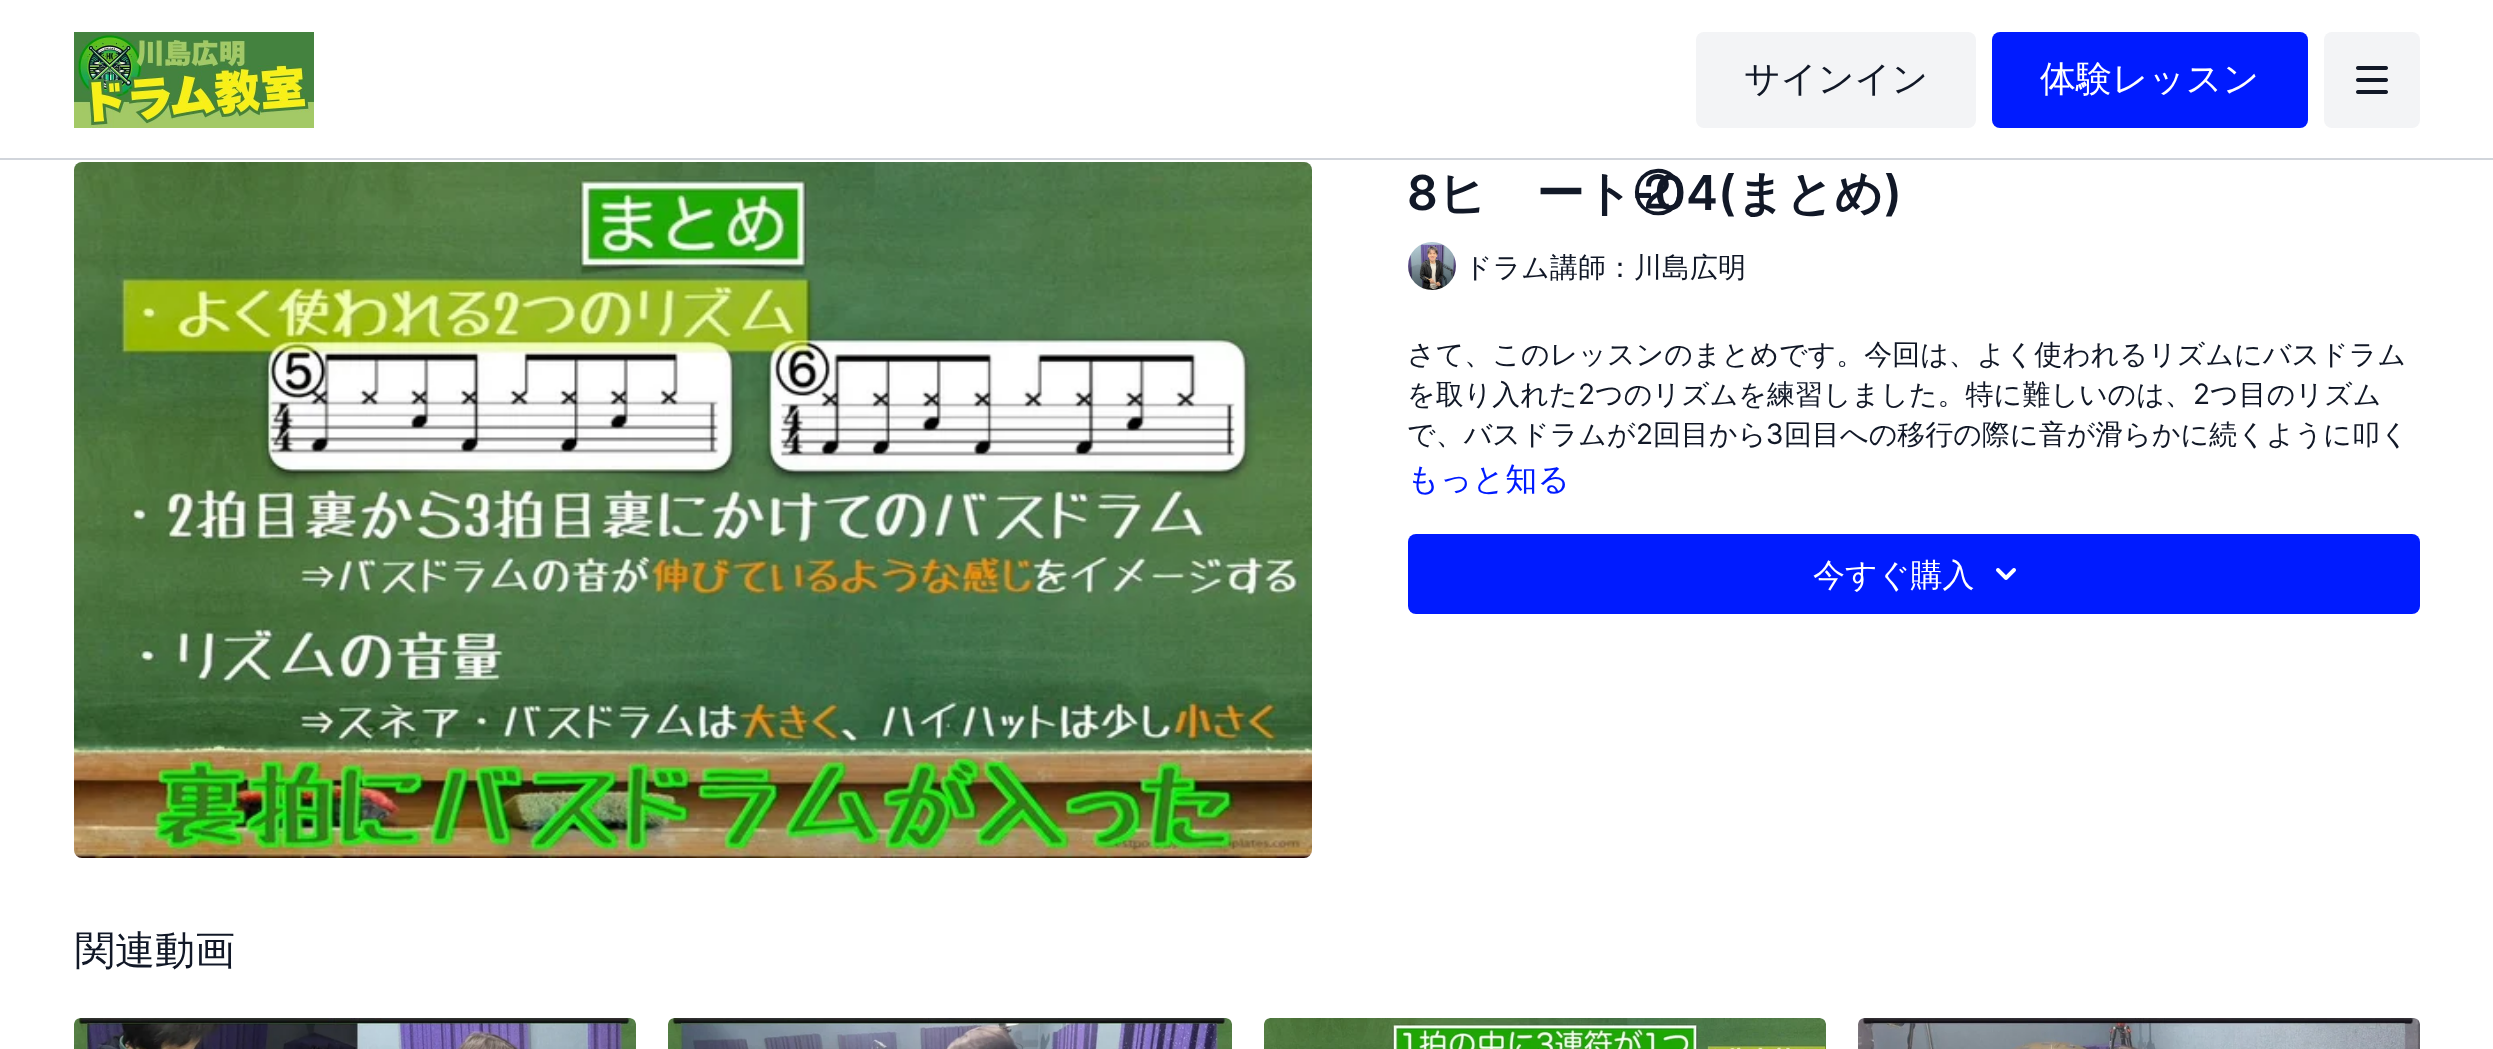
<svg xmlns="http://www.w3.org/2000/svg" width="2493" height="1049">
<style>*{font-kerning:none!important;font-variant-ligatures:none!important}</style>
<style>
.a{font:500 36px WenQuanYi Zen Hei;fill:#111827}
.b{font:500 36px WenQuanYi Zen Hei;fill:#fff}
.c{font:600 48px Inter;fill:#111827}
.d{font:bold 48px WenQuanYi Zen Hei;fill:#111827}
.e{font:500 28px WenQuanYi Zen Hei;fill:#111827}
.f{font:28px Inter;fill:#111827}
.g{font:500 32px WenQuanYi Zen Hei;fill:#001bff}
.h{font:500 32px WenQuanYi Zen Hei;fill:#fff}
.i{font:500 40px WenQuanYi Zen Hei;fill:#111827}
</style>
<rect width="100%" height="100%" fill="#fff"/>
<path fill="#d1d5db" d="M0 158h2493v2H0z"/>
<image href="1.png" x="74" y="32" width="240" height="96"/>
<rect fill="#f3f4f6" x="1696" y="32" width="280" height="96" rx="8"/>
<rect fill="#001bff" x="1992" y="32" width="316" height="96" rx="8"/>
<rect fill="#f3f4f6" x="2324" y="32" width="96" height="96" rx="8"/>
<image href="2.png" x="2356" y="66" width="32" height="28"/>
<image href="3.png" x="74" y="162" width="1238" height="696"/>
<image href="4.png" x="1408" y="242" width="48" height="48"/>
<rect fill="#001bff" x="1408" y="534" width="1012" height="80" rx="8"/>
<image href="5.png" x="1996" y="568" width="20" height="12"/>
<image href="6.png" x="74" y="1018" width="562" height="31"/>
<image href="7.png" x="668" y="1018" width="564" height="31"/>
<image href="8.png" x="1264" y="1018" width="562" height="31"/>
<image href="9.png" x="1858" y="1018" width="562" height="31"/>
<text class="a" x="1744" y="91">サインイン</text>
<text class="b" x="2040" y="91">体験レッスン</text>
<text class="c" x="1407" y="210">8</text>
<text class="d" x="1438" y="210">ビート②</text>
<text class="c" x="1632" y="210">-04(</text>
<text class="d" x="1736" y="210">まとめ</text>
<text class="c" x="1884" y="210">)</text>
<text class="e" x="1464" y="277">ドラム講師：川島広明</text>
<text class="e" x="1407" y="364">さて、このレッスンのまとめです。今回は、よく使われるリズムにバスドラム</text>
<text class="e" x="1407" y="404">を取り入れた</text>
<text class="f" x="1578" y="404">2</text>
<text class="e" x="1595" y="404">つのリズムを練習しました。特に難しいのは、</text>
<text class="f" x="2193" y="404">2</text>
<text class="e" x="2210" y="404">つ目のリズム</text>
<text class="e" x="1407" y="444">で、バスドラムが</text>
<text class="f" x="1636" y="444">2</text>
<text class="e" x="1653" y="444">回目から</text>
<text class="f" x="1766" y="444">3</text>
<text class="e" x="1784" y="444">回目への移行の際に音が滑らかに続くように叩く</text>
<text class="g" x="1407" y="490">もっと知る</text>
<text class="h" x="1813" y="586">今すぐ購入</text>
<text class="i" x="75" y="964">関連動画</text>
</svg>
